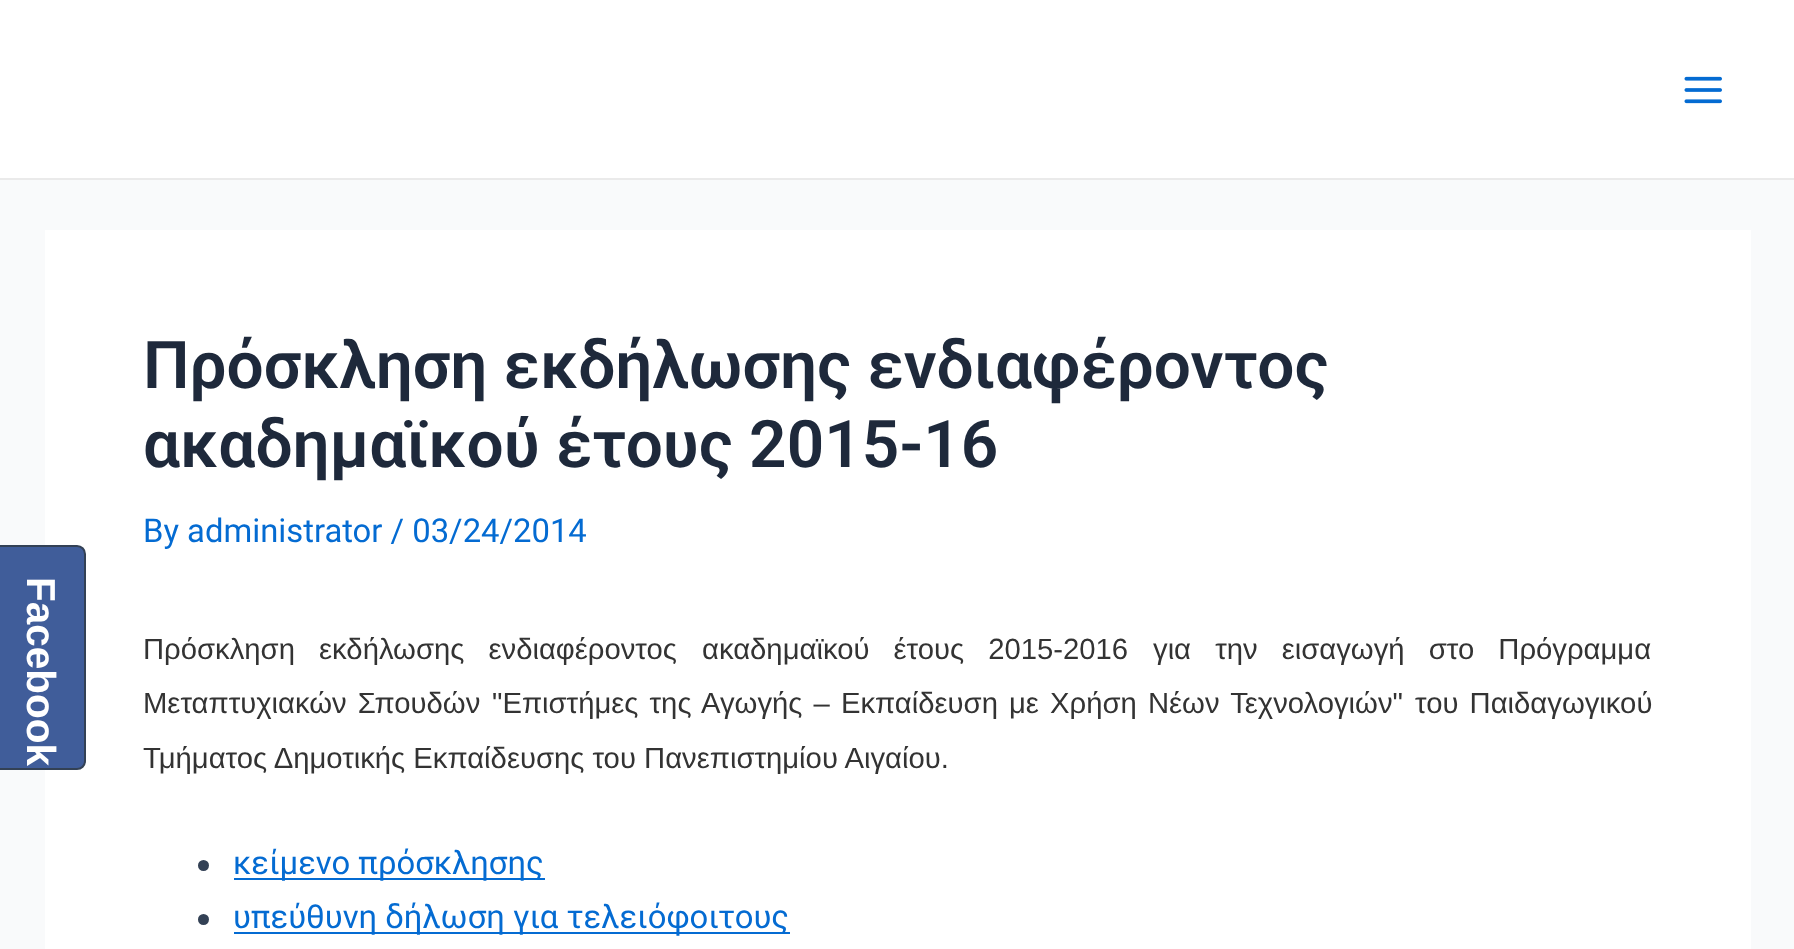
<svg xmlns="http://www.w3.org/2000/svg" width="1794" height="949">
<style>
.a{font:bold 40.5px Liberation Sans;fill:#fff}
.b{font:600 65.7px Roboto;fill:#1e293b}
.c{font:32.8px Roboto;fill:#046bd2}
.d{font:29.25px Liberation Sans;fill:#333}
</style>
<rect width="100%" height="100%" fill="#f9fafb"/>
<path fill="#fff" d="M45 230h1706v719H45z"/>
<path fill="#405d9a" stroke="#334155" stroke-width="2" d="M-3 546h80c4.5 0 8 3.5 8 8v207c0 4.5-3.5 8-8 8h-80z"/>
<path fill="#fff" d="M0 0h1794v178H0z"/>
<path fill="#eaeaea" d="M0 178h1794v2H0z"/>
<image href="1.png" x="1684" y="76" width="38" height="28"/>
<circle fill="#334155" cx="203.5" cy="865.5" r="5.5"/>
<path fill="#046bd2" d="M234 878h311v2H234z"/>
<circle fill="#334155" cx="203.5" cy="919.5" r="5.5"/>
<path fill="#046bd2" d="M234 932h556v2H234z"/>
<text class="a" x="27" y="577" transform="rotate(90 27 577)">Facebook</text>
<text class="b" x="143" y="388">Πρόσκληση εκδήλωσης ενδιαφέροντος</text>
<text class="b" x="143" y="467">ακαδημαϊκού έτους 2015-16</text>
<text class="c" x="143" y="542">By administrator / 03/24/2014</text>
<text class="d" x="143" y="659" word-spacing="16">Πρόσκληση εκδήλωσης ενδιαφέροντος</text>
<text class="d" x="702" y="659" word-spacing="16">ακαδημαϊκού έτους 2015-2016</text>
<text class="d" x="1153" y="659" word-spacing="16">για την εισαγωγή στο Πρόγραμμα</text>
<text class="d" x="143" y="713" word-spacing="3">Μεταπτυχιακών Σπουδών</text>
<text class="d" x="492" y="713" word-spacing="3">"Επιστήμες της Αγωγής – Εκπαίδευση με Χρήση Νέων Τεχνολογιών"</text>
<text class="d" x="1415" y="713" word-spacing="3">του Παιδαγωγικού</text>
<text class="d" x="143" y="768">Τμήματος Δημοτικής Εκπαίδευσης του Πανεπιστημίου Αιγαίου.</text>
<text class="c" x="233" y="874">κείμενο πρόσκλησης</text>
<text class="c" x="233" y="928">υπεύθυνη δήλωση για τελειόφοιτους</text>
</svg>
